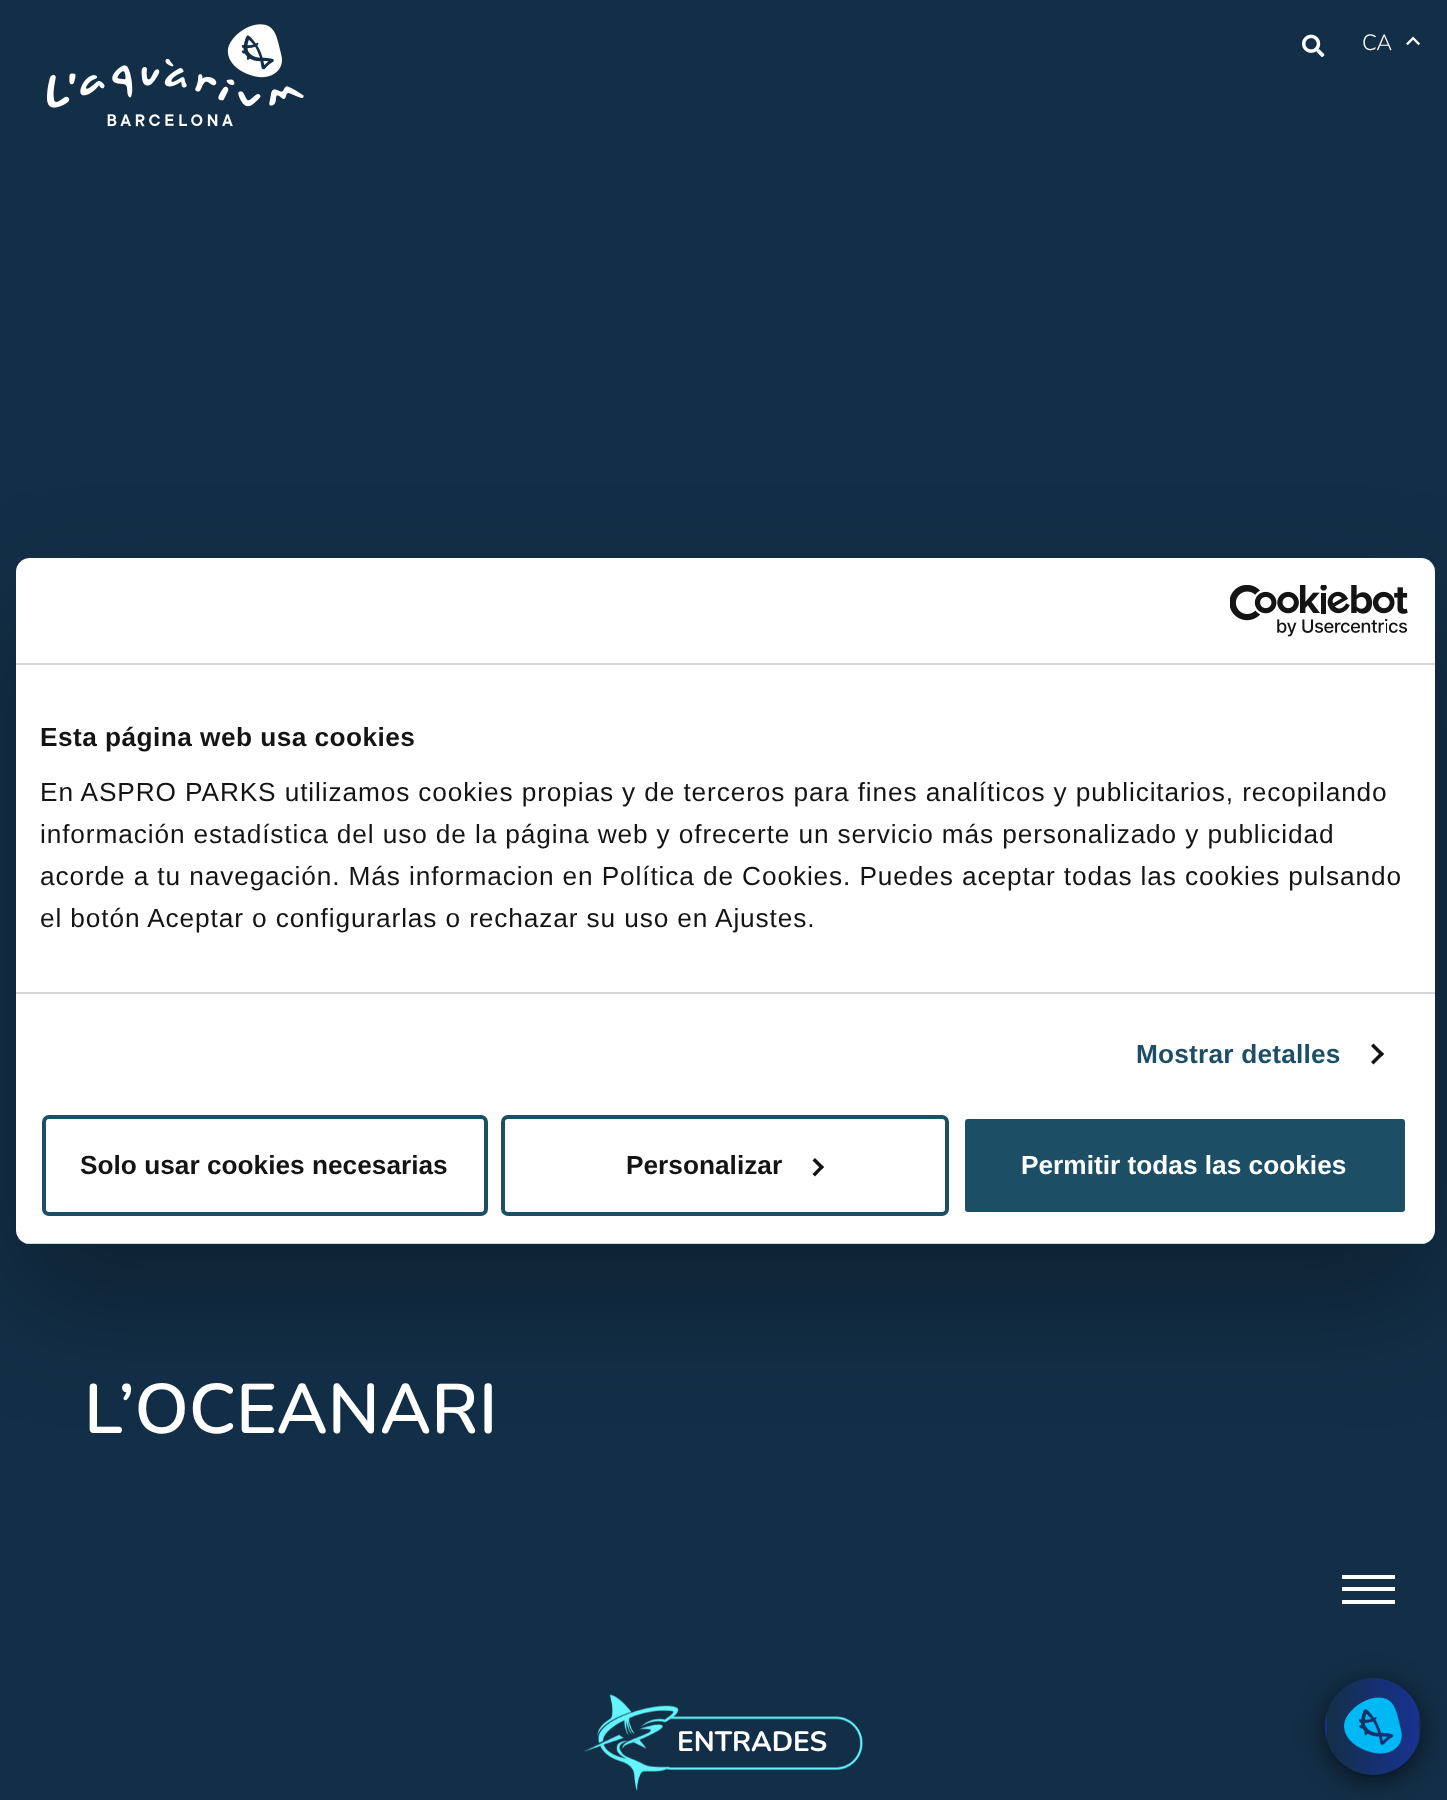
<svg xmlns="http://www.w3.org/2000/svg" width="1447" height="1800">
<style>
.a{font:300 22px Nunito;fill:#fff}
.b{font:bold 28px Nunito;fill:#fff}
.c{font:bold 26.25px Liberation Sans;letter-spacing:0.45px;fill:#141414}
.d{font:26.25px Liberation Sans;letter-spacing:0.88px;fill:#141414}
.e{font:bold 26.25px Liberation Sans;letter-spacing:0.2px;fill:#1c4f66}
.f{font:bold 26.25px Liberation Sans;fill:#141414}
.g{font:bold 26.25px Liberation Sans;fill:#fff}
.h{font:600 70px Nunito;fill:#fff}
</style>
<defs>
<clipPath id="clip1"><rect x="16" y="558" width="1419" height="686" rx="14"/></clipPath>
<clipPath id="clip2"><rect x="1325" y="1678" width="96" height="97" rx="48"/></clipPath>
<linearGradient id="g1" gradientUnits="userSpaceOnUse" x1="1234" y1="1726" x2="1327" y2="1726"><stop offset="0" stop-color="#132f47"/><stop offset="1" stop-color="#183292"/></linearGradient>
<linearGradient id="g2" gradientUnits="userSpaceOnUse" x1="1327" y1="1726" x2="1419" y2="1726"><stop offset="0" stop-color="#132f47"/><stop offset="1" stop-color="#183292"/></linearGradient>
<linearGradient id="g3" gradientUnits="userSpaceOnUse" x1="1419" y1="1726" x2="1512" y2="1726"><stop offset="0" stop-color="#132f47"/><stop offset="1" stop-color="#183292"/></linearGradient>
</defs>
<rect width="100%" height="100%" fill="#132f47"/>
<image href="1.png" x="47" y="24" width="257" height="103"/>
<image href="2.png" x="1302" y="34" width="23" height="23"/>
<image href="3.png" x="1406" y="36" width="14" height="10"/>
<path fill="#fff" d="M1342 1587h53v4H1342z"/>
<path fill="#fff" d="M1342 1575h53v4H1342z"/>
<path fill="#fff" d="M1342 1600h53v4H1342z"/>
<image href="4.png" x="584" y="1694" width="279" height="97"/>
<rect fill="#0000004d" filter="blur(59.5px)" x="16" y="614" width="1419" height="686" rx="14"/>
<rect fill="#fff" x="16" y="558" width="1419" height="686" rx="14"/>
<path fill="#d6d6d6" d="M16 663h1419v2H16z"/>
<image href="5.png" x="1230" y="585" width="178" height="52"/>
<path fill="#d6d6d6" d="M16 992h1419v2H16z"/>
<path fill="#141414" d="M1373.5 1043.5l10.5 10.5l-2.5 2.5l-10.5-10.5z"/>
<path fill="#141414" d="M1381.5 1051.5l2.5 2.5l-10.5 10.5l-2.5-2.5z"/>
<g clip-path="url(#clip1)">
<path fill="#d6d6d6" d="M25 1243h1401v1H25z"/>
</g>
<rect fill="none" stroke="#1c4f66" stroke-width="4" x="44" y="1117" width="442" height="97" rx="5"/>
<rect fill="none" stroke="#1c4f66" stroke-width="4" x="503" y="1117" width="444" height="97" rx="5"/>
<path fill="#141414" d="M815 1158l9 9l-2.5 2.5l-9-9z"/>
<path fill="#141414" d="M821.5 1165l2.5 2l-9 9.5l-2.5-2.5z"/>
<rect fill="#1c4f66" stroke="#fff" stroke-width="4" x="963" y="1117" width="444" height="97" rx="5"/>
<rect fill="#00000033" filter="blur(1px)" x="1328" y="1687" width="90" height="89" rx="44.5"/>
<rect fill="#00000099" filter="blur(14px)" x="1325" y="1684" width="96" height="96" rx="48"/>
<g clip-path="url(#clip2)">
<path fill="url(#g1)" d="M1325 1712h2v29H1325z"/>
<path fill="url(#g2)" d="M1327 1678h92v97H1327z"/>
<path fill="url(#g3)" d="M1419 1712h2v29H1419z"/>
</g>
<image href="6.png" x="1344" y="1697" width="58" height="57"/>
<text class="a" x="1362" y="50">CA</text>
<text class="b" x="677" y="1751">ENTRADES</text>
<text class="c" x="40" y="746">Esta página web usa cookies</text>
<text class="d" x="40" y="801">En ASPRO PARKS utilizamos cookies propias y de terceros para fines analíticos y publicitarios, recopilando</text>
<text class="d" x="40" y="843">información estadística del uso de la página web y ofrecerte un servicio más personalizado y publicidad</text>
<text class="d" x="40" y="885">acorde a tu navegación. Más informacion en Política de Cookies. Puedes aceptar todas las cookies pulsando</text>
<text class="d" x="40" y="927">el botón Aceptar o configurarlas o rechazar su uso en Ajustes.</text>
<text class="e" x="1136" y="1063">Mostrar detalles</text>
<text class="f" x="80" y="1174">Solo usar cookies necesarias</text>
<text class="f" x="626" y="1174">Personalizar</text>
<text class="g" x="1021" y="1174">Permitir todas las cookies</text>
<text class="h" x="84" y="1433">L’OCEANARI</text>
</svg>
